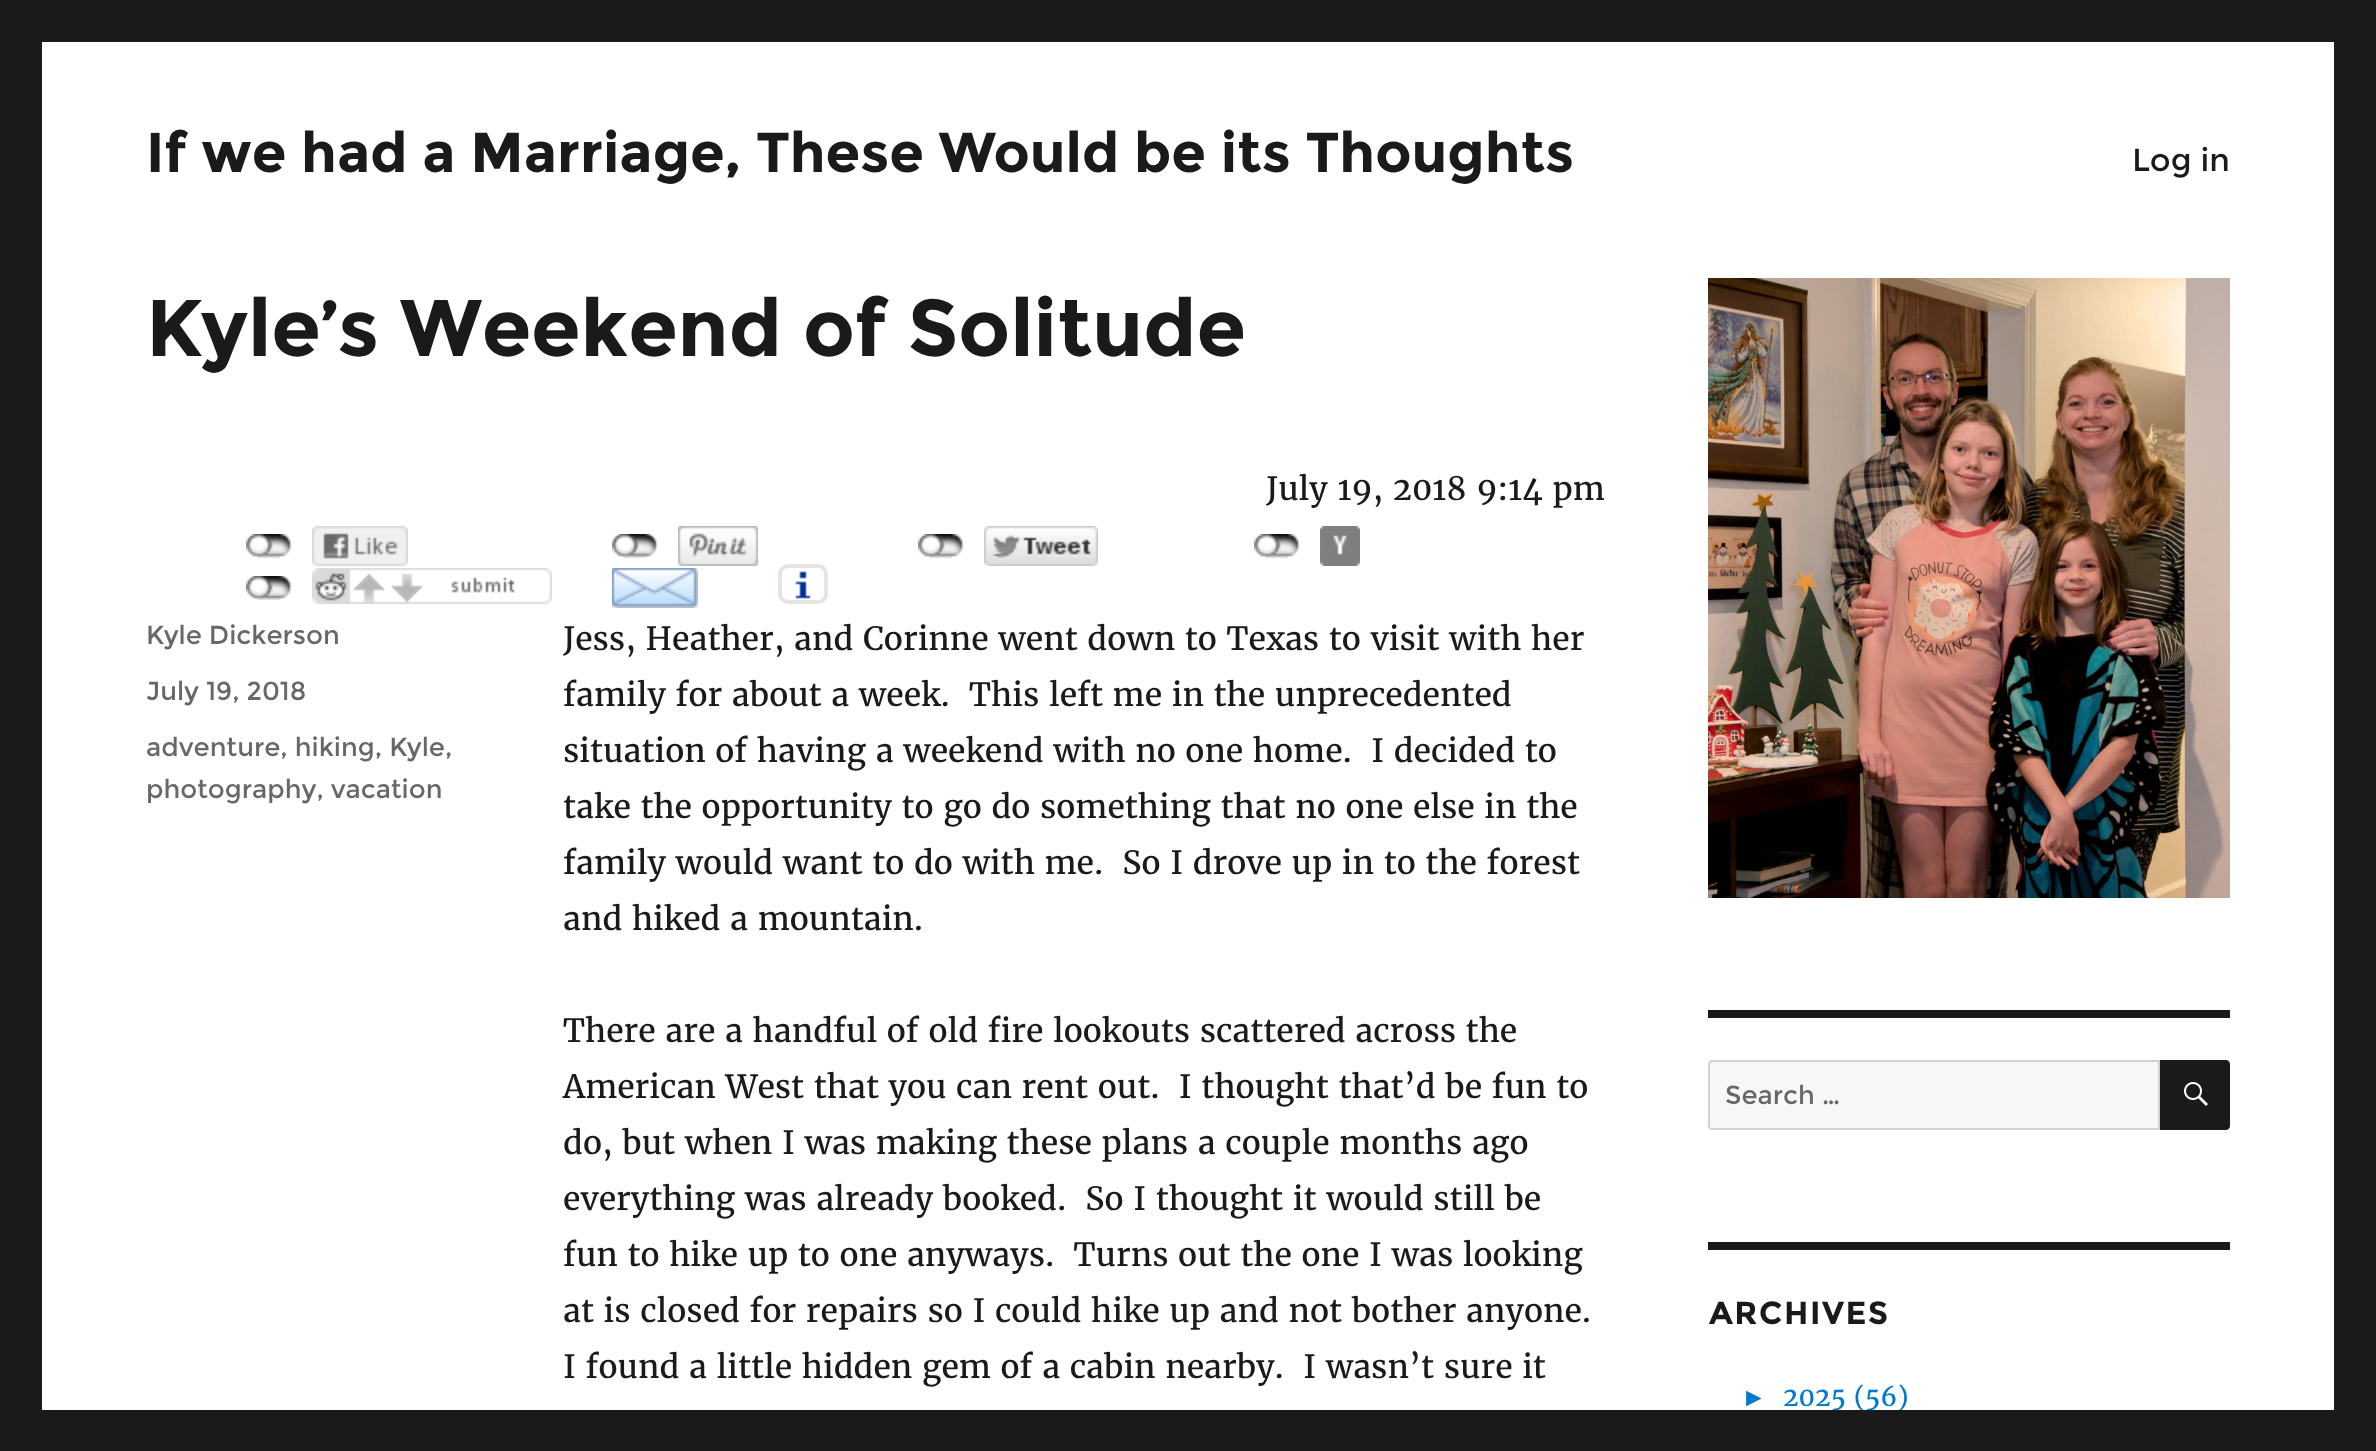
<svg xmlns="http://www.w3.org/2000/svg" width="2376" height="1451">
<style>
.a{font:bold 56px Montserrat;fill:#1a1a1a}
.b{font:32px Montserrat;fill:#1a1a1a}
.c{font:bold 80px Montserrat;fill:#1a1a1a}
.d{font:32px Merriweather;fill:#1a1a1a}
.e{font:26px Montserrat;fill:#686868}
.f{font:bold 32px Montserrat;letter-spacing:1.5px;fill:#1a1a1a}
.g{font:26px Liberation Serif;fill:#007acc}
.h{font:26px Merriweather;fill:#007acc}
</style>
<rect width="100%" height="100%" fill="#1a1a1a"/>
<path fill="#fff" d="M42 42h2292v1368H42z"/>
<image href="1.png" x="246" y="534" width="46" height="24"/>
<image href="2.png" x="312" y="526" width="96" height="40"/>
<image href="1.png" x="612" y="534" width="46" height="24"/>
<image href="3.png" x="678" y="526" width="80" height="40"/>
<image href="1.png" x="918" y="534" width="46" height="24"/>
<image href="4.png" x="984" y="526" width="114" height="40"/>
<image href="1.png" x="1254" y="534" width="46" height="24"/>
<image href="5.png" x="1320" y="526" width="40" height="40"/>
<image href="1.png" x="246" y="576" width="46" height="24"/>
<image href="6.png" x="312" y="568" width="240" height="36"/>
<image href="7.png" x="612" y="568" width="86" height="40"/>
<image href="8.png" x="795" y="571" width="16" height="28"/>
<rect fill="none" stroke="#e7e3e3" stroke-width="4" x="780" y="566" width="46" height="36" rx="8"/>
<image href="9.png" x="1708" y="278" width="522" height="620"/>
<path fill="#1a1a1a" d="M1708 1010h522v8H1708z"/>
<path fill="#f7f7f7" stroke="#d1d1d1" stroke-width="2" d="M1712 1061h447v68h-447c-1.5 0-3-1.5-3-3v-62c0-1.5 1.5-3 3-3z"/>
<path fill="#1a1a1a" d="M2160 1060h66c2 0 4 2 4 4v62c0 2-2 4-4 4h-66z"/>
<image href="10.png" x="2184" y="1082" width="24" height="24"/>
<path fill="#1a1a1a" d="M1708 1242h522v8H1708z"/>
<text class="a" x="146" y="172">If we had a Marriage, These Would be its Thoughts</text>
<text class="b" x="2132" y="171">Log in</text>
<text class="c" x="146" y="356">Kyle’s Weekend of Solitude</text>
<text class="d" x="1266" y="500">July 19, 2018 9:14 pm</text>
<text class="e" x="146" y="644">Kyle Dickerson</text>
<text class="e" x="146" y="700">July 19, 2018</text>
<text class="e" x="146" y="756">adventure, hiking, Kyle,</text>
<text class="e" x="146" y="798">photography, vacation</text>
<text class="d" x="563" y="650">Jess, Heather, and Corinne went down to Texas to visit with her</text>
<text class="d" xml:space="preserve" x="563" y="706">family for about a week.  This left me in the unprecedented</text>
<text class="d" xml:space="preserve" x="563" y="762">situation of having a weekend with no one home.  I decided to</text>
<text class="d" x="563" y="818">take the opportunity to go do something that no one else in the</text>
<text class="d" xml:space="preserve" x="563" y="874">family would want to do with me.  So I drove up in to the forest</text>
<text class="d" x="563" y="930">and hiked a mountain.</text>
<text class="d" x="563" y="1042">There are a handful of old fire lookouts scattered across the</text>
<text class="d" xml:space="preserve" x="563" y="1098">American West that you can rent out.  I thought that’d be fun to</text>
<text class="d" x="563" y="1154">do, but when I was making these plans a couple months ago</text>
<text class="d" xml:space="preserve" x="563" y="1210">everything was already booked.  So I thought it would still be</text>
<text class="d" xml:space="preserve" x="563" y="1266">fun to hike up to one anyways.  Turns out the one I was looking</text>
<text class="d" x="563" y="1322">at is closed for repairs so I could hike up and not bother anyone.</text>
<text class="d" xml:space="preserve" x="563" y="1378">I found a little hidden gem of a cabin nearby.  I wasn’t sure it</text>
<text class="e" x="1725" y="1104">Search …</text>
<text class="f" x="1709" y="1324">ARCHIVES</text>
<text class="g" x="1741" y="1406">►</text>
<text class="h" x="1783" y="1406">2025 (56)</text>
<path fill="#1a1a1a" d="M1832 1410h70v1H1832z"/>
</svg>
